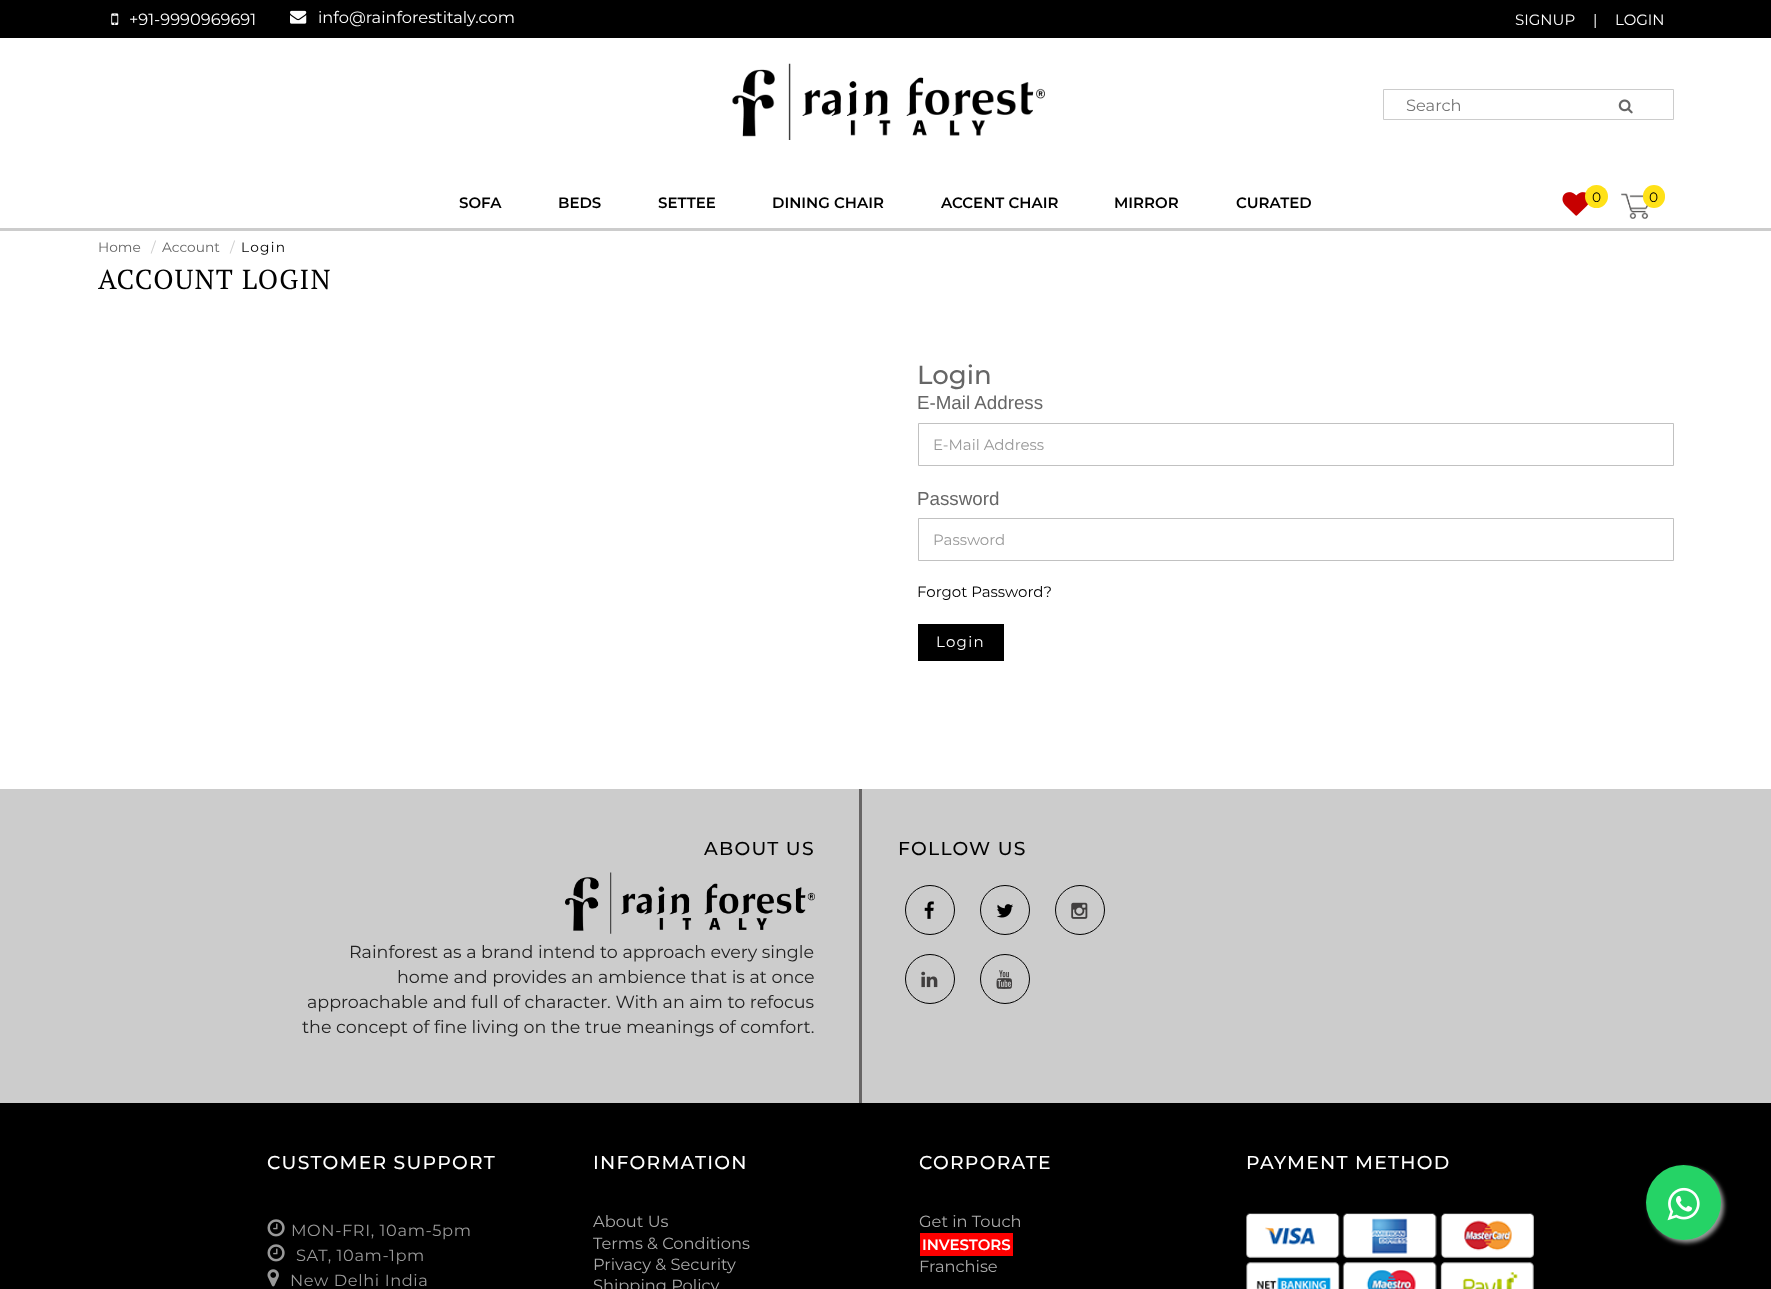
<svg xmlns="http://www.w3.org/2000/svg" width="1771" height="1289">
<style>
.a{font:16.25px Montserrat;fill:#fff}
.b{font:15px Montserrat;fill:#fff}
.c{font:16.25px Montserrat;fill:#757575}
.d{font:600 15px Montserrat;fill:#000}
.e{font:13.75px Montserrat;fill:#000}
.f{font:13.75px Montserrat;fill:#666}
.g{font:13.75px Montserrat;fill:#ccc}
.h{font:13.75px Montserrat;letter-spacing:1.25px;fill:#000}
.i{font:27.5px PT Serif;letter-spacing:1.25px;fill:#000}
.j{font:500 26px Montserrat;fill:#666}
.k{font:18.75px Liberation Sans;fill:#666}
.l{font:15px Montserrat;fill:#999}
.m{font:15px Montserrat;fill:#000}
.n{font:15px Montserrat;letter-spacing:1.25px;fill:#fff}
.o{font:500 18.75px Montserrat;letter-spacing:1.25px;fill:#000}
.p{font:17.5px Montserrat;fill:#222}
.q{font:500 18.75px Montserrat;letter-spacing:1.25px;fill:#fff}
.r{font:16.25px Montserrat;letter-spacing:0.6px;fill:#999}
.s{font:16.25px Montserrat;fill:#aaa}
.t{font:600 15px Montserrat;fill:#fff}
</style>
<rect width="100%" height="100%" fill="#fff"/>
<path fill="#000" d="M0 0h1771v38H0z"/>
<image href="1.png" x="111" y="13" width="8" height="12"/>
<image href="2.png" x="290" y="10" width="17" height="14"/>
<image href="3.png" x="732" y="63" width="313" height="77"/>
<path fill="none" stroke="#ccc" d="M1383.5 89.5h290v30H1383.5z"/>
<image href="4.png" x="1618" y="99" width="15" height="15"/>
<path fill="#ccc" d="M0 228h1771v3H0z"/>
<image href="5.png" x="1562" y="192" width="27" height="24"/>
<circle fill="#ffe117" cx="1596.5" cy="196.5" r="11.5"/>
<image href="6.png" x="1621" y="193" width="28" height="26"/>
<rect fill="#ffe117" x="1643" y="185" width="22" height="23" rx="11"/>
<path fill="none" stroke="#c1c1c1" d="M918.5 423.5h755v42H918.5z"/>
<path fill="none" stroke="#c1c1c1" d="M918.5 518.5h755v42H918.5z"/>
<path fill="#000" d="M918 624h86v37H918z"/>
<path fill="#000" d="M0 1103h1771v186H0z"/>
<path fill="#ccc" d="M0 789h1771v314H0z"/>
<path fill="#676565" d="M859 789h3v314H859z"/>
<image href="7.png" x="565" y="872" width="250" height="62"/>
<circle fill="none" stroke="#000" cx="930" cy="910" r="24.5"/>
<image href="8.png" x="924" y="901" width="10" height="18"/>
<circle fill="none" stroke="#000" cx="1005" cy="910" r="24.5"/>
<image href="9.png" x="997" y="904" width="16" height="14"/>
<circle fill="none" stroke="#000" cx="1080" cy="910" r="24.5"/>
<image href="10.png" x="1071" y="902" width="17" height="17"/>
<circle fill="none" stroke="#000" cx="930" cy="979" r="24.5"/>
<image href="11.png" x="921" y="971" width="17" height="17"/>
<circle fill="none" stroke="#000" cx="1005" cy="979" r="24.5"/>
<image href="12.png" x="996" y="970" width="17" height="19"/>
<image href="13.png" x="267" y="1219" width="18" height="18"/>
<image href="13.png" x="267" y="1244" width="18" height="18"/>
<image href="14.png" x="267" y="1269" width="12" height="18"/>
<path fill="#f00" d="M920 1233h93v23H920z"/>
<image href="15.png" x="1246" y="1213" width="288" height="76"/>
<rect fill="#999" filter="blur(2px)" x="1649" y="1168" width="75" height="75" rx="37.5"/>
<circle fill="#25d366" cx="1683.5" cy="1202.5" r="37.5"/>
<image href="16.png" x="1667" y="1187" width="33" height="34"/>
<text class="a" x="129" y="25">+91-9990969691</text>
<text class="a" x="318" y="23">info@rainforestitaly.com</text>
<text class="b" x="1515" y="25">SIGNUP</text>
<text class="b" x="1593" y="25">|</text>
<text class="b" x="1615" y="25">LOGIN</text>
<text class="c" x="1406" y="111">Search</text>
<text class="d" x="459" y="208">SOFA</text>
<text class="d" x="558" y="208">BEDS</text>
<text class="d" x="658" y="208">SETTEE</text>
<text class="d" x="772" y="208">DINING CHAIR</text>
<text class="d" x="941" y="208">ACCENT CHAIR</text>
<text class="d" x="1114" y="208">MIRROR</text>
<text class="d" x="1236" y="208">CURATED</text>
<text class="e" x="1592" y="202">0</text>
<text class="e" x="1649" y="202">0</text>
<text class="f" x="98" y="252">Home</text>
<text class="g" x="151" y="252">/</text>
<text class="f" x="162" y="252">Account</text>
<text class="g" x="230" y="252">/</text>
<text class="h" x="241" y="252">Login</text>
<text class="i" x="98" y="289">ACCOUNT LOGIN</text>
<text class="j" x="917" y="384">Login</text>
<text class="k" x="917" y="409">E-Mail Address</text>
<text class="l" x="933" y="450">E-Mail Address</text>
<text class="k" x="917" y="505">Password</text>
<text class="l" x="933" y="545">Password</text>
<text class="m" x="917" y="597">Forgot Password?</text>
<text class="n" x="936" y="647">Login</text>
<text class="o" x="704" y="855">ABOUT US</text>
<text class="p" x="349" y="958">Rainforest as a brand intend to approach every single</text>
<text class="p" x="397" y="983">home and provides an ambience that is at once</text>
<text class="p" x="307" y="1008">approachable and full of character. With an aim to refocus</text>
<text class="p" x="302" y="1033">the concept of fine living on the true meanings of comfort.</text>
<text class="o" x="898" y="855">FOLLOW US</text>
<text class="q" x="267" y="1169">CUSTOMER SUPPORT</text>
<text class="r" x="291" y="1236">MON-FRI, 10am-5pm</text>
<text class="r" x="296" y="1261">SAT, 10am-1pm</text>
<text class="r" x="290" y="1286">New Delhi India</text>
<text class="q" x="593" y="1169">INFORMATION</text>
<text class="s" x="593" y="1227">About Us</text>
<text class="s" x="593" y="1249">Terms &amp; Conditions</text>
<text class="s" x="593" y="1270">Privacy &amp; Security</text>
<text class="s" x="593" y="1291">Shipping Policy</text>
<text class="q" x="919" y="1169">CORPORATE</text>
<text class="s" x="919" y="1227">Get in Touch</text>
<text class="t" x="922" y="1250">INVESTORS</text>
<text class="s" x="919" y="1272">Franchise</text>
<text class="q" x="1246" y="1169">PAYMENT METHOD</text>
</svg>
